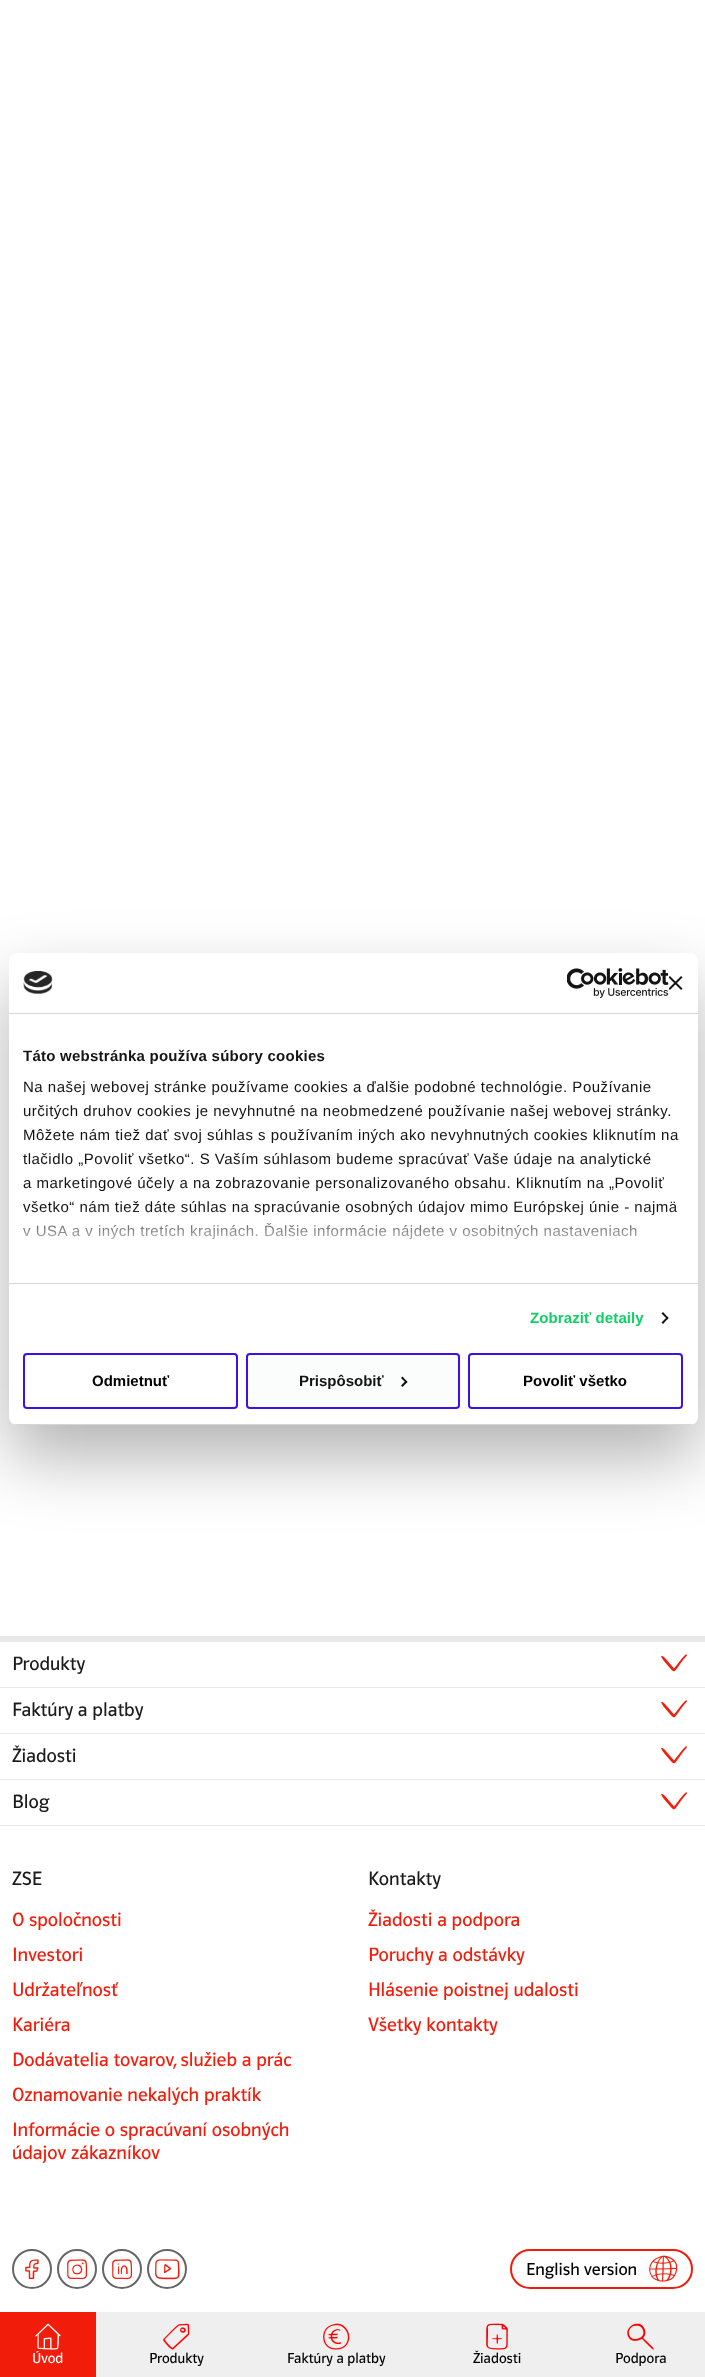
<svg xmlns="http://www.w3.org/2000/svg" width="705" height="2377">
<style>
.a{font:bold 15px Liberation Sans;letter-spacing:0.25px;fill:#141414}
.b{font:15px Liberation Sans;letter-spacing:0.5px;fill:#141414}
.c{font:bold 15px Liberation Sans;letter-spacing:0.1px;fill:#10cf66}
.d{font:bold 15px Liberation Sans;fill:#000}
.e{font:bold 15px Liberation Sans;fill:#141414}
.f{font:20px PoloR;fill:#1b1b1b}
.g{font:20px PoloR;fill:#f21c0a}
.h{font:18px PoloR;fill:#000}
.i{font:15px PoloR;fill:#fff}
.j{font:15px PoloR;fill:#000}
</style>
<defs>
<clipPath id="clip1"><rect x="9" y="953" width="689" height="472" rx="8"/></clipPath>
<linearGradient id="g1" gradientUnits="userSpaceOnUse" x1="347" y1="1283" x2="347" y2="1208"><stop offset="0" stop-color="#fff"/><stop offset="0.5" stop-color="#fff" stop-opacity="0.8"/><stop offset="1" stop-color="#fff" stop-opacity="0"/></linearGradient>
</defs>
<rect width="100%" height="100%" fill="#fff"/>
<rect fill="#0000004d" filter="blur(34px)" x="9" y="985" width="689" height="472" rx="8"/>
<rect fill="#fff" x="9" y="953" width="689" height="472" rx="8"/>
<path fill="#d6d6d6" d="M9 1013h689v1H9z"/>
<image href="1.png" x="23" y="971" width="30" height="23"/>
<image href="2.png" x="567" y="968" width="102" height="30"/>
<image href="3.png" x="669" y="976" width="14" height="14"/>
<path fill="#d6d6d6" d="M9 1283h689v1H9z"/>
<path fill="#141414" d="M663 1312l5.5 6l-1 1.5l-6-6z"/>
<path fill="#141414" d="M667.5 1316.5l1 1.5l-5.5 6l-1.5-1.5z"/>
<g clip-path="url(#clip1)">
<path fill="#d6d6d6" d="M9 1424h689v1H9z"/>
</g>
<rect fill="none" stroke="#3e0fe9" stroke-width="2" x="24" y="1354" width="213" height="54" rx="3"/>
<rect fill="#fbfdfc" stroke="#3e0fe9" stroke-width="2" x="247" y="1354" width="212" height="54" rx="3"/>
<path fill="#141414" d="M402.5 1376.5l5 5.5l-1.5 1l-5-5z"/>
<path fill="#141414" d="M406 1380.5l1.5 1.5l-5 5l-1.5-1.5z"/>
<rect fill="none" stroke="#3e0fe9" stroke-width="2" x="469" y="1354" width="213" height="54" rx="3"/>
<path fill="#e9e9e9" d="M0 1636h705v6H0z"/>
<path fill="#e9e9e9" d="M0 1687h705v1H0z"/>
<image href="4.png" x="661" y="1654" width="26" height="18"/>
<path fill="#e9e9e9" d="M0 1733h705v1H0z"/>
<image href="4.png" x="661" y="1700" width="26" height="18"/>
<path fill="#e9e9e9" d="M0 1779h705v1H0z"/>
<image href="4.png" x="661" y="1746" width="26" height="18"/>
<path fill="#e9e9e9" d="M0 1825h705v1H0z"/>
<image href="4.png" x="661" y="1792" width="26" height="18"/>
<circle fill="none" stroke="#666" stroke-width="2" cx="32" cy="2269" r="19"/>
<image href="5.png" x="25" y="2259" width="14" height="21"/>
<circle fill="none" stroke="#666" stroke-width="2" cx="77" cy="2269" r="19"/>
<image href="6.png" x="67" y="2259" width="21" height="21"/>
<circle fill="none" stroke="#666" stroke-width="2" cx="122" cy="2269" r="19"/>
<image href="7.png" x="112" y="2259" width="21" height="21"/>
<circle fill="none" stroke="#666" stroke-width="2" cx="167" cy="2269" r="19"/>
<image href="8.png" x="155" y="2259" width="25" height="21"/>
<rect fill="none" stroke="#f21c0a" stroke-width="2" x="511" y="2250" width="181" height="38" rx="19"/>
<image href="9.png" x="649" y="2255" width="29" height="27"/>
<path fill="#efefef" d="M96 2312h609v65H96z"/>
<path fill="#f21c0a" d="M0 2312h96v65H0z"/>
<image href="10.png" x="35" y="2323" width="26" height="27"/>
<image href="11.png" x="163" y="2323" width="27" height="27"/>
<image href="12.png" x="323" y="2323" width="27" height="27"/>
<image href="13.png" x="486" y="2323" width="22" height="27"/>
<image href="14.png" x="627" y="2323" width="27" height="27"/>
<text class="a" x="23" y="1061">Táto webstránka používa súbory cookies</text>
<text class="b" x="23" y="1092">Na našej webovej stránke používame cookies a ďalšie podobné technológie. Používanie</text>
<text class="b" x="23" y="1116">určitých druhov cookies je nevyhnutné na neobmedzené používanie našej webovej stránky.</text>
<text class="b" x="23" y="1140">Môžete nám tiež dať svoj súhlas s používaním iných ako nevyhnutných cookies kliknutím na</text>
<text class="b" x="23" y="1164">tlačidlo „Povoliť všetko“. S Vaším súhlasom budeme spracúvať Vaše údaje na analytické</text>
<text class="b" x="23" y="1188">a marketingové účely a na zobrazovanie personalizovaného obsahu. Kliknutím na „Povoliť</text>
<text class="b" x="23" y="1212">všetko“ nám tiež dáte súhlas na spracúvanie osobných údajov mimo Európskej únie - najmä</text>
<text class="b" x="23" y="1236">v USA a v iných tretích krajinách. Ďalšie informácie nájdete v osobitných nastaveniach</text>
<path fill="url(#g1)" d="M23 1209h654v31H23z"/>
<text class="c" x="530" y="1323">Zobraziť detaily</text>
<text class="d" x="92" y="1386">Odmietnuť</text>
<text class="e" x="299" y="1386">Prispôsobiť</text>
<text class="d" x="523" y="1386">Povoliť všetko</text>
<text class="f" x="12" y="1670">Produkty</text>
<text class="f" x="12" y="1716">Faktúry a platby</text>
<text class="f" x="12" y="1762">Žiadosti</text>
<text class="f" x="12" y="1808">Blog</text>
<text class="f" x="12" y="1885">ZSE</text>
<text class="g" x="12" y="1926">O spoločnosti</text>
<text class="g" x="12" y="1961">Investori</text>
<text class="g" x="12" y="1996">Udržateľnosť</text>
<text class="g" x="12" y="2031">Kariéra</text>
<text class="g" x="12" y="2066">Dodávatelia tovarov, služieb a prác</text>
<text class="g" x="12" y="2101">Oznamovanie nekalých praktík</text>
<text class="g" x="12" y="2136">Informácie o spracúvaní osobných</text>
<text class="g" x="12" y="2159">údajov zákazníkov</text>
<text class="f" x="368" y="1885">Kontakty</text>
<text class="g" x="368" y="1926">Žiadosti a podpora</text>
<text class="g" x="368" y="1961">Poruchy a odstávky</text>
<text class="g" x="368" y="1996">Hlásenie poistnej udalosti</text>
<text class="g" x="368" y="2031">Všetky kontakty</text>
<text class="h" x="526" y="2275">English version</text>
<text class="i" x="32" y="2363">Úvod</text>
<text class="j" x="149" y="2363">Produkty</text>
<text class="j" x="287" y="2363">Faktúry a platby</text>
<text class="j" x="473" y="2363">Žiadosti</text>
<text class="j" x="615" y="2363">Podpora</text>
</svg>
